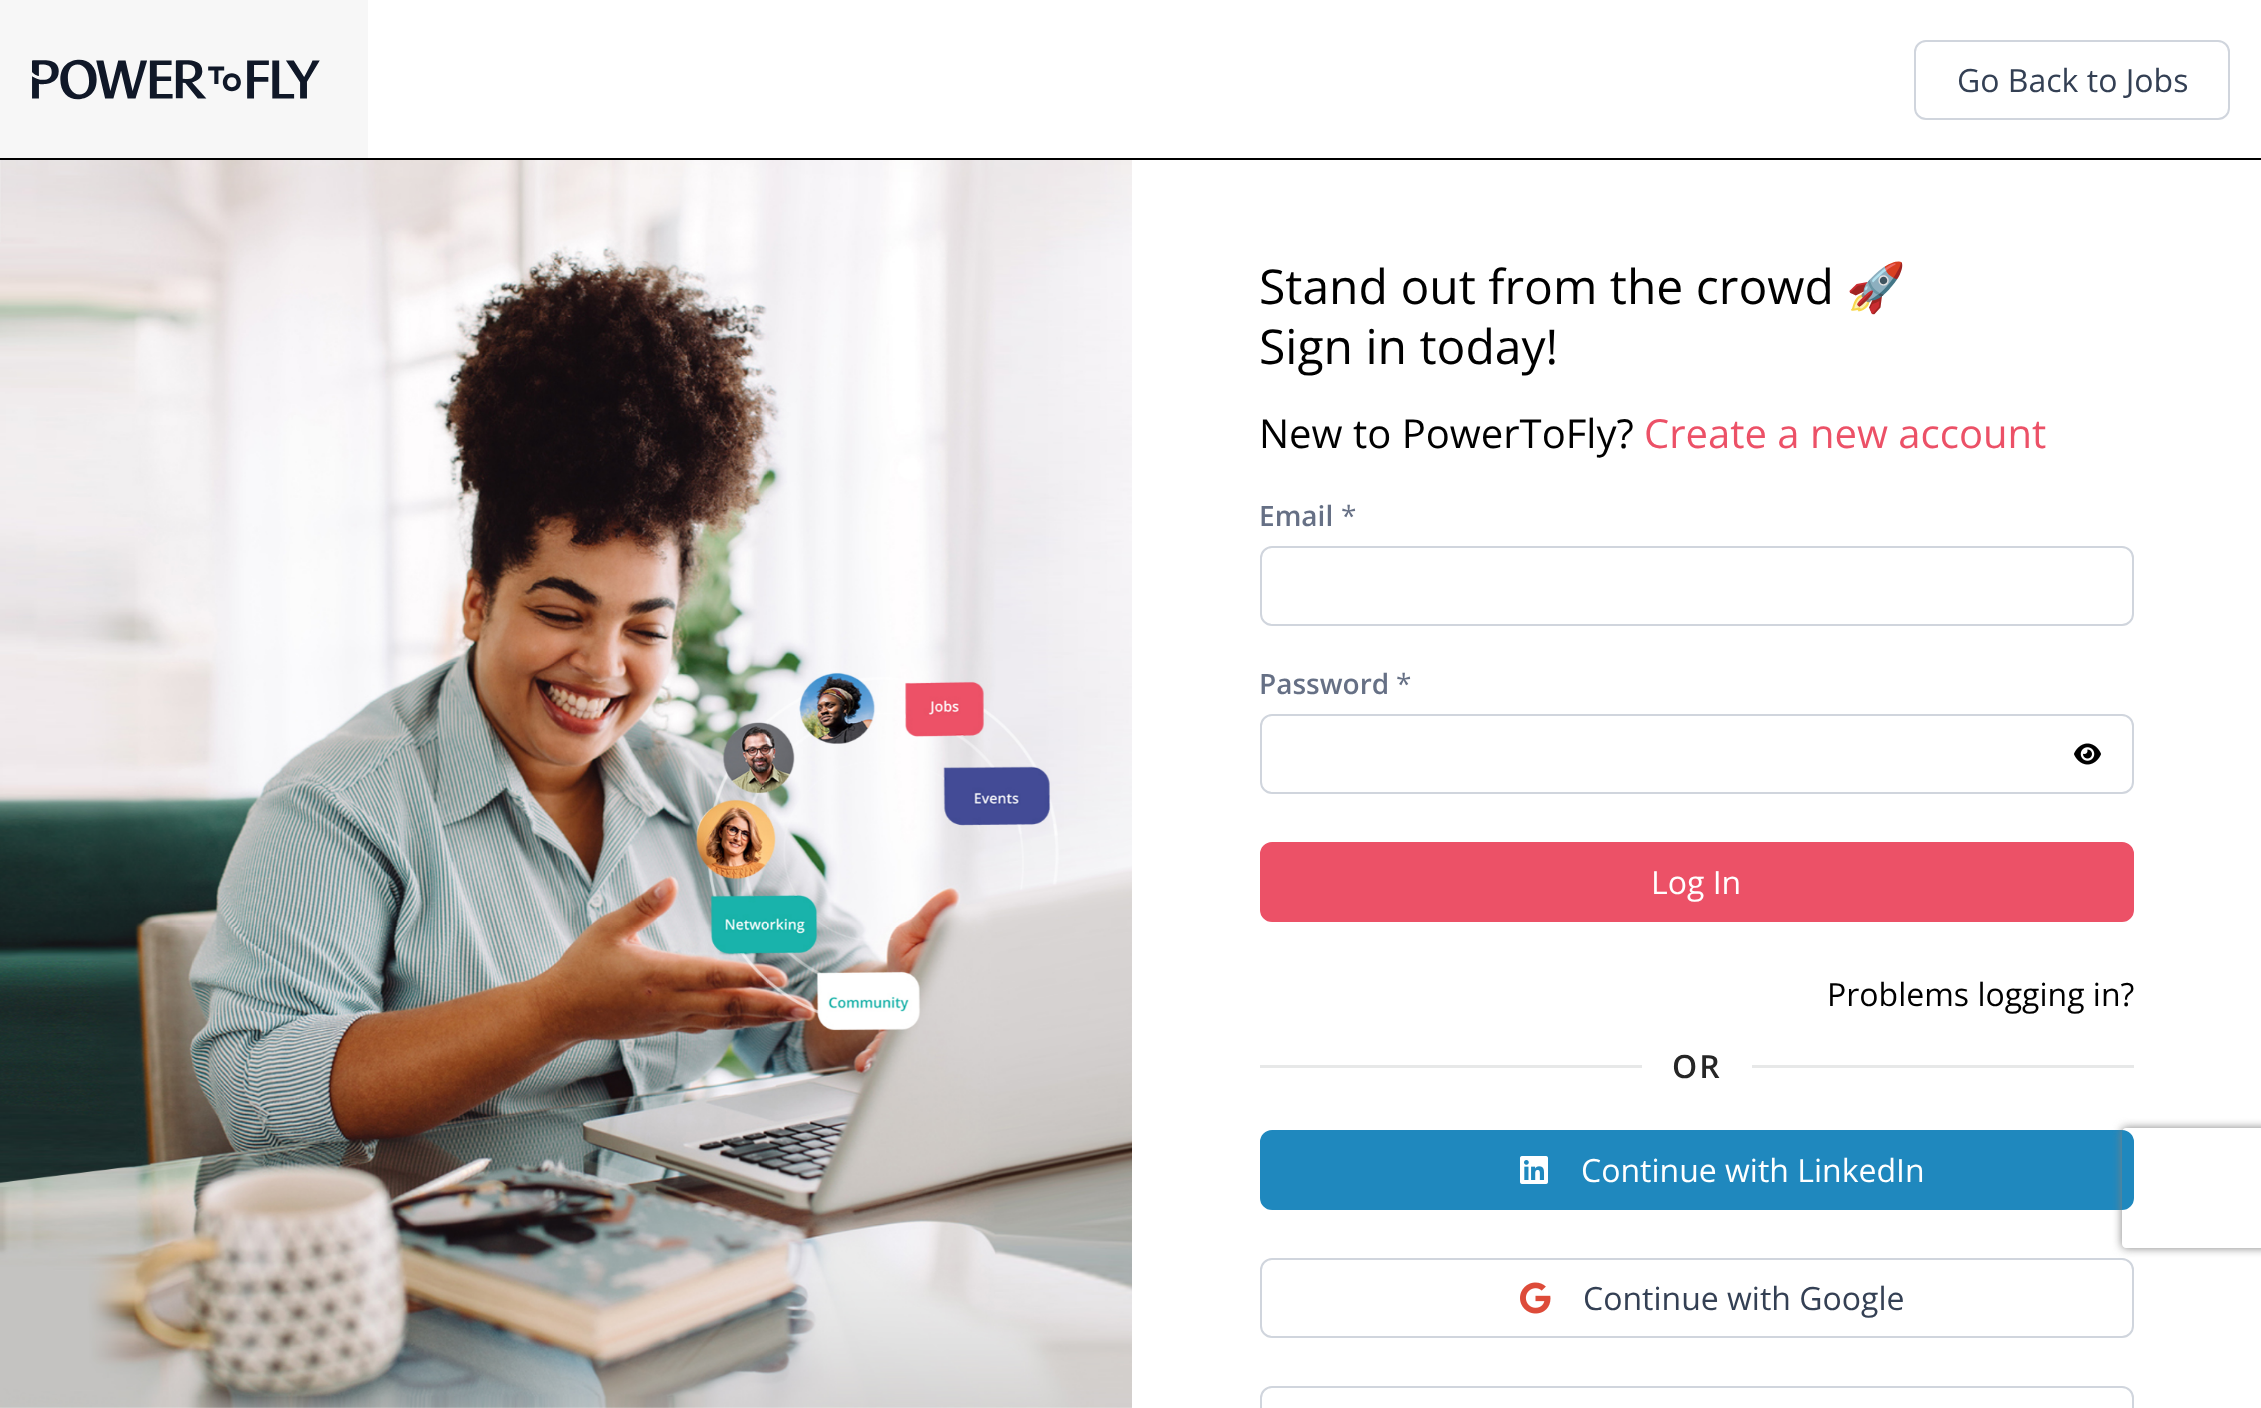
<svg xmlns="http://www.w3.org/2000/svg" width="2261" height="1408">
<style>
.a{font:32px Open Sans;fill:#344054}
.b{font:48px Open Sans;fill:#000}
.c{font:48px Noto Color Emoji;fill:#000}
.d{font:40px Open Sans;fill:#000}
.e{font:40px Open Sans;fill:#ec5167}
.f{font:600 28px Open Sans;fill:#667085}
.g{font:28px Open Sans;fill:#667085}
.h{font:32px Open Sans;fill:#fff}
.i{font:32px Open Sans;fill:#000}
.j{font:600 32px Open Sans;letter-spacing:2px;fill:#262626}
</style>
<defs>
<clipPath id="clip1"><path d="M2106 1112h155v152h-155zm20 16h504c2 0 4 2 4 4v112c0 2-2 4-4 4h-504c-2 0-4-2-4-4v-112c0-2 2-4 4-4z" clip-rule="evenodd"/></clipPath>
</defs>
<rect width="100%" height="100%" fill="#fff"/>
<path fill="#f7f7f7" d="M0 0h368v158H0z"/>
<path fill="#000" d="M0 158h2261v2H0z"/>
<image href="1.png" x="32" y="59" width="288" height="41"/>
<rect fill="none" stroke="#d0d5dd" stroke-width="2" x="1915" y="41" width="314" height="78" rx="11"/>
<image href="2.png" x="0" y="160" width="1132" height="1248"/>
<rect fill="none" stroke="#d0d5dd" stroke-width="2" x="1261" y="547" width="872" height="78" rx="11"/>
<rect fill="none" stroke="#d0d5dd" stroke-width="2" x="1261" y="715" width="872" height="78" rx="11"/>
<image href="3.png" x="2074" y="743" width="27" height="22"/>
<rect fill="#ec5167" stroke="#ec5167" stroke-width="2" x="1261" y="843" width="872" height="78" rx="11"/>
<path fill="#e7e8e8" d="M1260 1065h382v3H1260z"/>
<path fill="#e7e8e8" d="M1752 1065h382v3H1752z"/>
<rect fill="#1f88be" stroke="#1f88be" stroke-width="2" x="1261" y="1131" width="872" height="78" rx="11"/>
<image href="4.png" x="1520" y="1156" width="28" height="28"/>
<rect fill="none" stroke="#d0d5dd" stroke-width="2" x="1261" y="1259" width="872" height="78" rx="11"/>
<image href="5.png" x="1520" y="1282" width="31" height="32"/>
<rect fill="none" stroke="#d0d5dd" stroke-width="2" x="1261" y="1387" width="872" height="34" rx="11"/>
<g clip-path="url(#clip1)">
<rect fill="#808080" filter="blur(5px)" x="2122" y="1128" width="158" height="120" rx="4"/>
</g>
<text class="a" x="1957" y="92">Go Back to Jobs</text>
<text class="b" x="1259" y="304">Stand out from the crowd</text>
<text class="c" x="1846" y="304">🚀</text>
<text class="b" x="1259" y="364">Sign in today!</text>
<text class="d" x="1259" y="448">New to PowerToFly?</text>
<text class="e" x="1644" y="448">Create a new account</text>
<text class="f" x="1259" y="526">Email</text>
<text class="g" x="1341" y="526">*</text>
<text class="f" x="1259" y="694">Password</text>
<text class="g" x="1396" y="694">*</text>
<text class="h" x="1651" y="894">Log In</text>
<text class="i" x="1827" y="1006">Problems logging in?</text>
<text class="j" x="1672" y="1078">OR</text>
<text class="h" x="1581" y="1182">Continue with LinkedIn</text>
<text class="a" x="1583" y="1310">Continue with Google</text>
</svg>
